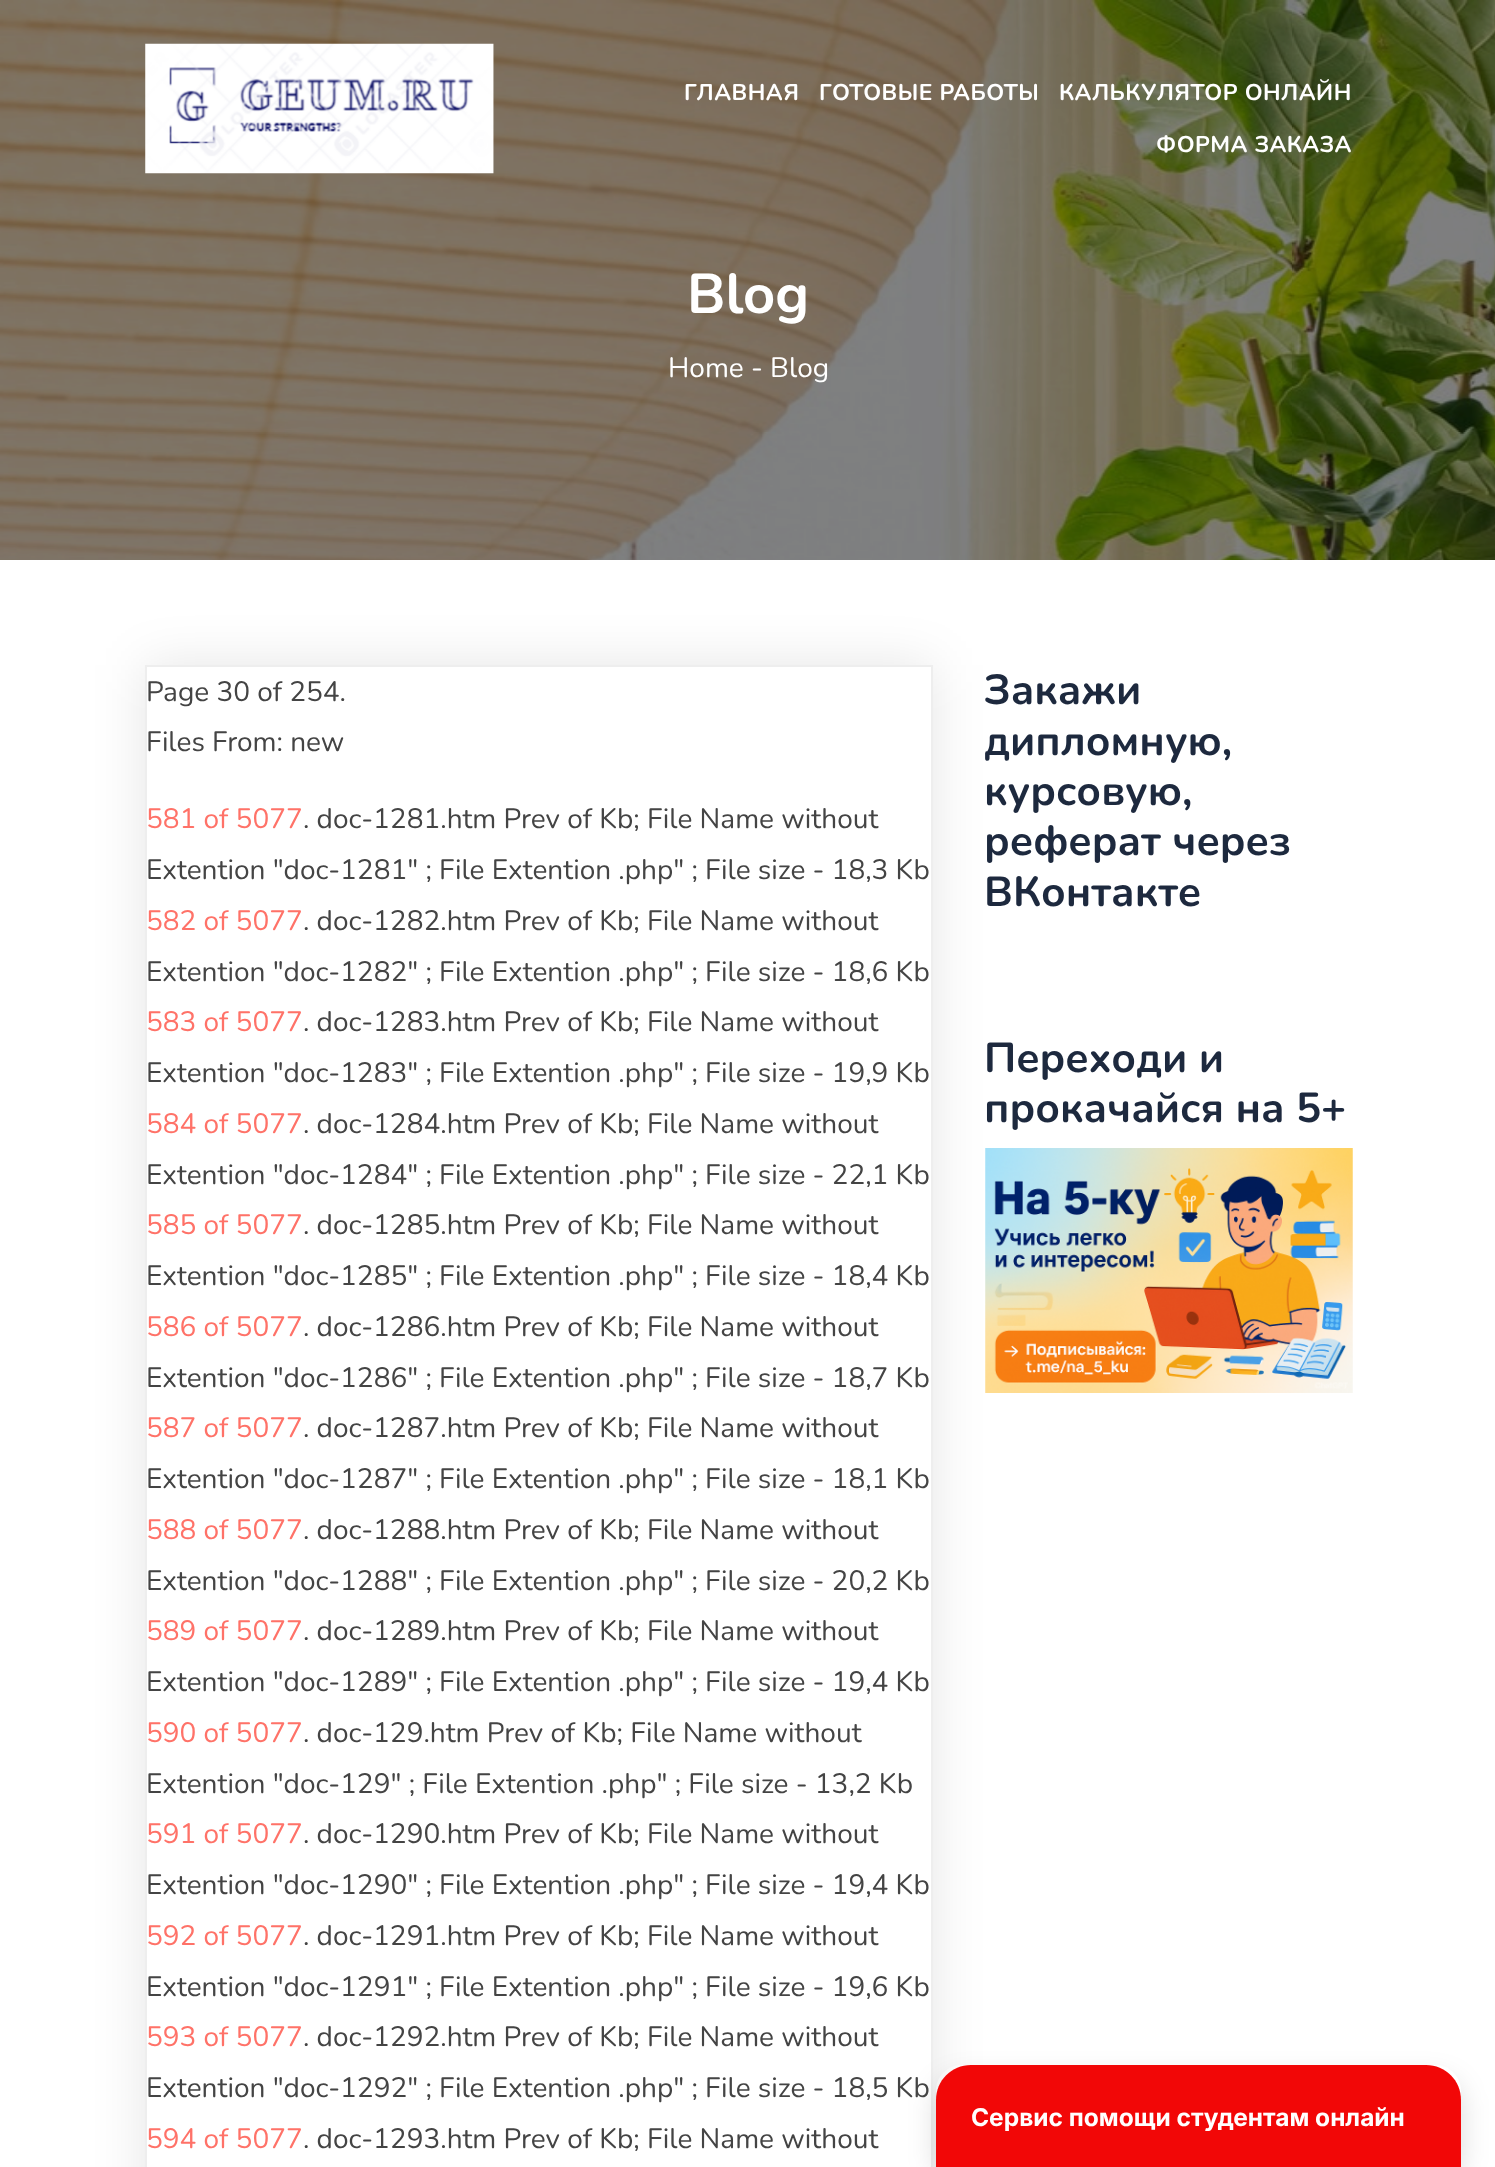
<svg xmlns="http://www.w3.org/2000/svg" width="1495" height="2167">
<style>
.a{font:bold 22.75px Nunito;letter-spacing:0.5px;fill:#fff}
.b{font:bold 56px Nunito;fill:#fff}
.c{font:28px Nunito;fill:#fff}
.d{font:28px Nunito;fill:#444}
.e{font:28px Nunito;fill:#ff7268}
.f{font:bold 42px Nunito;fill:#1d293e}
.g{font:bold 24.5px Inter;fill:#fff}
</style>
<defs>
<clipPath id="clip1"><path d="M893 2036h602v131h-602zm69 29h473c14.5 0 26 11.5 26 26v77h-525v-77c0-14.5 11.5-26 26-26z" clip-rule="evenodd"/></clipPath>
</defs>
<rect width="100%" height="100%" fill="#fff"/>
<image href="2.png" x="0" y="0" width="1495" height="560"/>
<image href="1.png" x="145" y="43" width="349" height="131"/>
<path fill="#0000001a" filter="blur(26px)" d="M145 665h788v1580H145z"/>
<path fill="#fff" stroke="#eee" stroke-width="2" d="M146 666h786v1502H146z"/>
<image href="3.png" x="985" y="1148" width="368" height="245"/>
<g clip-path="url(#clip1)">
<rect fill="#00000026" filter="blur(14px)" x="936" y="2079" width="525" height="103" rx="26"/>
</g>
<path fill="#f20707" d="M971 2065h455c19.5 0 35 15.5 35 35v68h-525v-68c0-19.5 15.5-35 35-35z"/>
<text class="a" x="684" y="100">ГЛАВНАЯ</text>
<text class="a" x="819" y="100">ГОТОВЫЕ РАБОТЫ</text>
<text class="a" x="1059" y="100">КАЛЬКУЛЯТОР ОНЛАЙН</text>
<text class="a" x="1156" y="152">ФОРМА ЗАКАЗА</text>
<text class="b" x="687" y="313">Blog</text>
<text class="c" x="668" y="377">Home - Blog</text>
<text class="d" x="146" y="701">Page 30 of 254.</text>
<text class="d" x="146" y="751">Files From: new</text>
<text class="e" x="146" y="828">581 of 5077</text>
<text class="d" x="303" y="828">. doc-1281.htm Prev of Kb; File Name without</text>
<text class="d" x="146" y="879">Extention "doc-1281" ; File Extention .php" ; File size - 18,3 Kb</text>
<text class="e" x="146" y="930">582 of 5077</text>
<text class="d" x="303" y="930">. doc-1282.htm Prev of Kb; File Name without</text>
<text class="d" x="146" y="981">Extention "doc-1282" ; File Extention .php" ; File size - 18,6 Kb</text>
<text class="e" x="146" y="1031">583 of 5077</text>
<text class="d" x="303" y="1031">. doc-1283.htm Prev of Kb; File Name without</text>
<text class="d" x="146" y="1082">Extention "doc-1283" ; File Extention .php" ; File size - 19,9 Kb</text>
<text class="e" x="146" y="1133">584 of 5077</text>
<text class="d" x="303" y="1133">. doc-1284.htm Prev of Kb; File Name without</text>
<text class="d" x="146" y="1184">Extention "doc-1284" ; File Extention .php" ; File size - 22,1 Kb</text>
<text class="e" x="146" y="1234">585 of 5077</text>
<text class="d" x="303" y="1234">. doc-1285.htm Prev of Kb; File Name without</text>
<text class="d" x="146" y="1285">Extention "doc-1285" ; File Extention .php" ; File size - 18,4 Kb</text>
<text class="e" x="146" y="1336">586 of 5077</text>
<text class="d" x="303" y="1336">. doc-1286.htm Prev of Kb; File Name without</text>
<text class="d" x="146" y="1387">Extention "doc-1286" ; File Extention .php" ; File size - 18,7 Kb</text>
<text class="e" x="146" y="1437">587 of 5077</text>
<text class="d" x="303" y="1437">. doc-1287.htm Prev of Kb; File Name without</text>
<text class="d" x="146" y="1488">Extention "doc-1287" ; File Extention .php" ; File size - 18,1 Kb</text>
<text class="e" x="146" y="1539">588 of 5077</text>
<text class="d" x="303" y="1539">. doc-1288.htm Prev of Kb; File Name without</text>
<text class="d" x="146" y="1590">Extention "doc-1288" ; File Extention .php" ; File size - 20,2 Kb</text>
<text class="e" x="146" y="1640">589 of 5077</text>
<text class="d" x="303" y="1640">. doc-1289.htm Prev of Kb; File Name without</text>
<text class="d" x="146" y="1691">Extention "doc-1289" ; File Extention .php" ; File size - 19,4 Kb</text>
<text class="e" x="146" y="1742">590 of 5077</text>
<text class="d" x="303" y="1742">. doc-129.htm Prev of Kb; File Name without</text>
<text class="d" x="146" y="1793">Extention "doc-129" ; File Extention .php" ; File size - 13,2 Kb</text>
<text class="e" x="146" y="1843">591 of 5077</text>
<text class="d" x="303" y="1843">. doc-1290.htm Prev of Kb; File Name without</text>
<text class="d" x="146" y="1894">Extention "doc-1290" ; File Extention .php" ; File size - 19,4 Kb</text>
<text class="e" x="146" y="1945">592 of 5077</text>
<text class="d" x="303" y="1945">. doc-1291.htm Prev of Kb; File Name without</text>
<text class="d" x="146" y="1996">Extention "doc-1291" ; File Extention .php" ; File size - 19,6 Kb</text>
<text class="e" x="146" y="2046">593 of 5077</text>
<text class="d" x="303" y="2046">. doc-1292.htm Prev of Kb; File Name without</text>
<text class="d" x="146" y="2097">Extention "doc-1292" ; File Extention .php" ; File size - 18,5 Kb</text>
<text class="e" x="146" y="2148">594 of 5077</text>
<text class="d" x="303" y="2148">. doc-1293.htm Prev of Kb; File Name without</text>
<text class="f" x="984" y="704">Закажи</text>
<text class="f" x="984" y="755">дипломную,</text>
<text class="f" x="984" y="805">курсовую,</text>
<text class="f" x="984" y="855">реферат через</text>
<text class="f" x="984" y="906">ВКонтакте</text>
<text class="f" x="984" y="1072">Переходи и</text>
<text class="f" x="984" y="1122">прокачайся на 5+</text>
<text class="g" x="971" y="2126">Сервис помощи студентам онлайн</text>
</svg>
